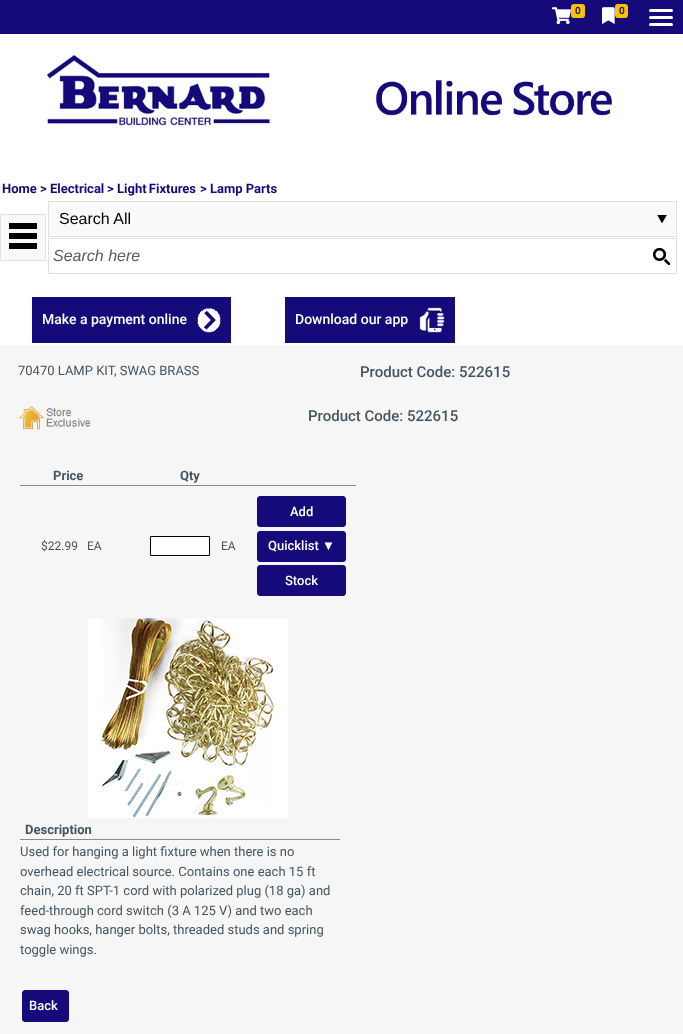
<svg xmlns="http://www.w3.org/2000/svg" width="683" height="1034">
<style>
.a{font:bold 10px Roboto;fill:#212529}
.b{font:bold 13px Roboto;fill:#150a7a}
.c{font:16px Liberation Sans;fill:#000}
.d{font:italic 16px Liberation Sans;fill:#5c5c5c}
.e{font:500 14px Roboto;fill:#fff}
.f{font:13px Roboto;fill:#455560}
.g{font:500 15px Roboto;fill:#455560}
.h{font:bold 13px Roboto;fill:#455560}
.i{font:12px Roboto;fill:#455560}
.j{font:500 13px Roboto;fill:#fff}
.k{font:13px Liberation Sans;fill:#fff}
</style>
<rect width="100%" height="100%" fill="#fff"/>
<path fill="#150a7a" d="M0 0h683v34H0z"/>
<image href="1.png" x="552" y="7" width="19" height="18"/>
<rect fill="#ffc107" x="571" y="4" width="14" height="14" rx="3"/>
<image href="2.png" x="602" y="7" width="13" height="17"/>
<rect fill="#ffc107" x="615" y="4" width="13" height="14" rx="3"/>
<rect fill="#fff" x="649" y="23" width="24" height="3" rx="1.5"/>
<rect fill="#fff" x="649" y="9" width="24" height="3" rx="1.5"/>
<rect fill="#fff" x="649" y="16" width="24" height="3" rx="1.5"/>
<image href="3.png" x="46" y="55" width="566" height="71"/>
<rect fill="#f9f9f9" stroke="#e0e0e0" x="0.5" y="214.5" width="45" height="46" rx="1.5"/>
<image href="4.png" x="9" y="223" width="28" height="26"/>
<path fill="#e0dfdf" d="M48 201h629v1H48z"/>
<path fill="#e0dfdf" d="M676 201h1v36H676z"/>
<path fill="#e0dfdf" d="M48 236h629v1H48z"/>
<path fill="#f9f9f9" d="M49 202h626v33H49z"/>
<image href="5.png" x="657" y="215" width="10" height="9"/>
<path fill="#e0dfdf" d="M48 201h1v36H48z"/>
<path fill="none" stroke="#e0e0e0" d="M48.5 238.5h628v35H48.5z"/>
<image href="6.png" x="653" y="248" width="17" height="17"/>
<rect fill="#150a7a" stroke="#fff" stroke-width="2" x="31" y="296" width="201" height="48" rx="1"/>
<image href="7.png" x="197" y="308" width="24" height="25"/>
<rect fill="#150a7a" stroke="#fff" stroke-width="2" x="284" y="296" width="172" height="48" rx="1"/>
<image href="8.png" x="419" y="307" width="26" height="26"/>
<path fill="#f6f6f6" d="M0 345h683v689H0z"/>
<image href="9.png" x="19" y="406" width="72" height="24"/>
<path fill="#8b8b8b" d="M20 485h336v1H20z"/>
<path fill="#fff" stroke="#000" d="M150.5 536.5h59v19H150.5z"/>
<rect fill="#150a7a" stroke="#150a7a" x="257.5" y="496.5" width="88" height="30" rx="2.5"/>
<rect fill="#150a7a" stroke="#150a7a" x="257.5" y="531.5" width="88" height="30" rx="2.5"/>
<rect fill="#150a7a" stroke="#150a7a" x="257.5" y="565.5" width="88" height="30" rx="2.5"/>
<image href="10.png" x="88" y="618" width="200" height="200"/>
<path fill="#8b8b8b" d="M20 839h320v1H20z"/>
<rect fill="#150a7a" stroke="#150a7a" x="22.5" y="990.5" width="46" height="31" rx="2.5"/>
<text class="a" x="575" y="14">0</text>
<text class="a" x="619" y="14">0</text>
<text class="b" x="2" y="193">Home &gt; Electrical</text>
<text class="b" x="107" y="193">&gt;</text>
<text class="b" x="117" y="193" word-spacing="-1">Light Fixtures</text>
<text class="b" x="200" y="193">&gt; Lamp Parts</text>
<text class="c" x="59" y="224">Search All</text>
<text class="d" x="53" y="261">Search here</text>
<text class="e" x="42" y="324">Make a payment online</text>
<text class="e" x="295" y="324">Download our app</text>
<text class="f" x="18" y="375">70470 LAMP KIT, SWAG BRASS</text>
<text class="g" x="360" y="377">Product Code: 522615</text>
<text class="g" x="308" y="421">Product Code: 522615</text>
<text class="h" x="53" y="480">Price</text>
<text class="h" x="180" y="480">Qty</text>
<text class="i" x="41" y="550">$22.99</text>
<text class="i" x="87" y="550">EA</text>
<text class="i" x="221" y="550">EA</text>
<text class="j" x="290" y="516">Add</text>
<text class="j" x="268" y="550">Quicklist</text>
<text class="k" x="322" y="550">▼</text>
<text class="j" x="285" y="585">Stock</text>
<text class="h" x="25" y="834">Description</text>
<text class="f" x="20" y="856">Used for hanging a light fixture when there is no</text>
<text class="f" x="20" y="876">overhead electrical source. Contains one each 15 ft</text>
<text class="f" x="20" y="895">chain, 20 ft SPT-1 cord with polarized plug (18 ga) and</text>
<text class="f" x="20" y="915">feed-through cord switch (3 A 125 V) and two each</text>
<text class="f" x="20" y="934">swag hooks, hanger bolts, threaded studs and spring</text>
<text class="f" x="20" y="954">toggle wings.</text>
<text class="j" x="29" y="1010">Back</text>
</svg>
